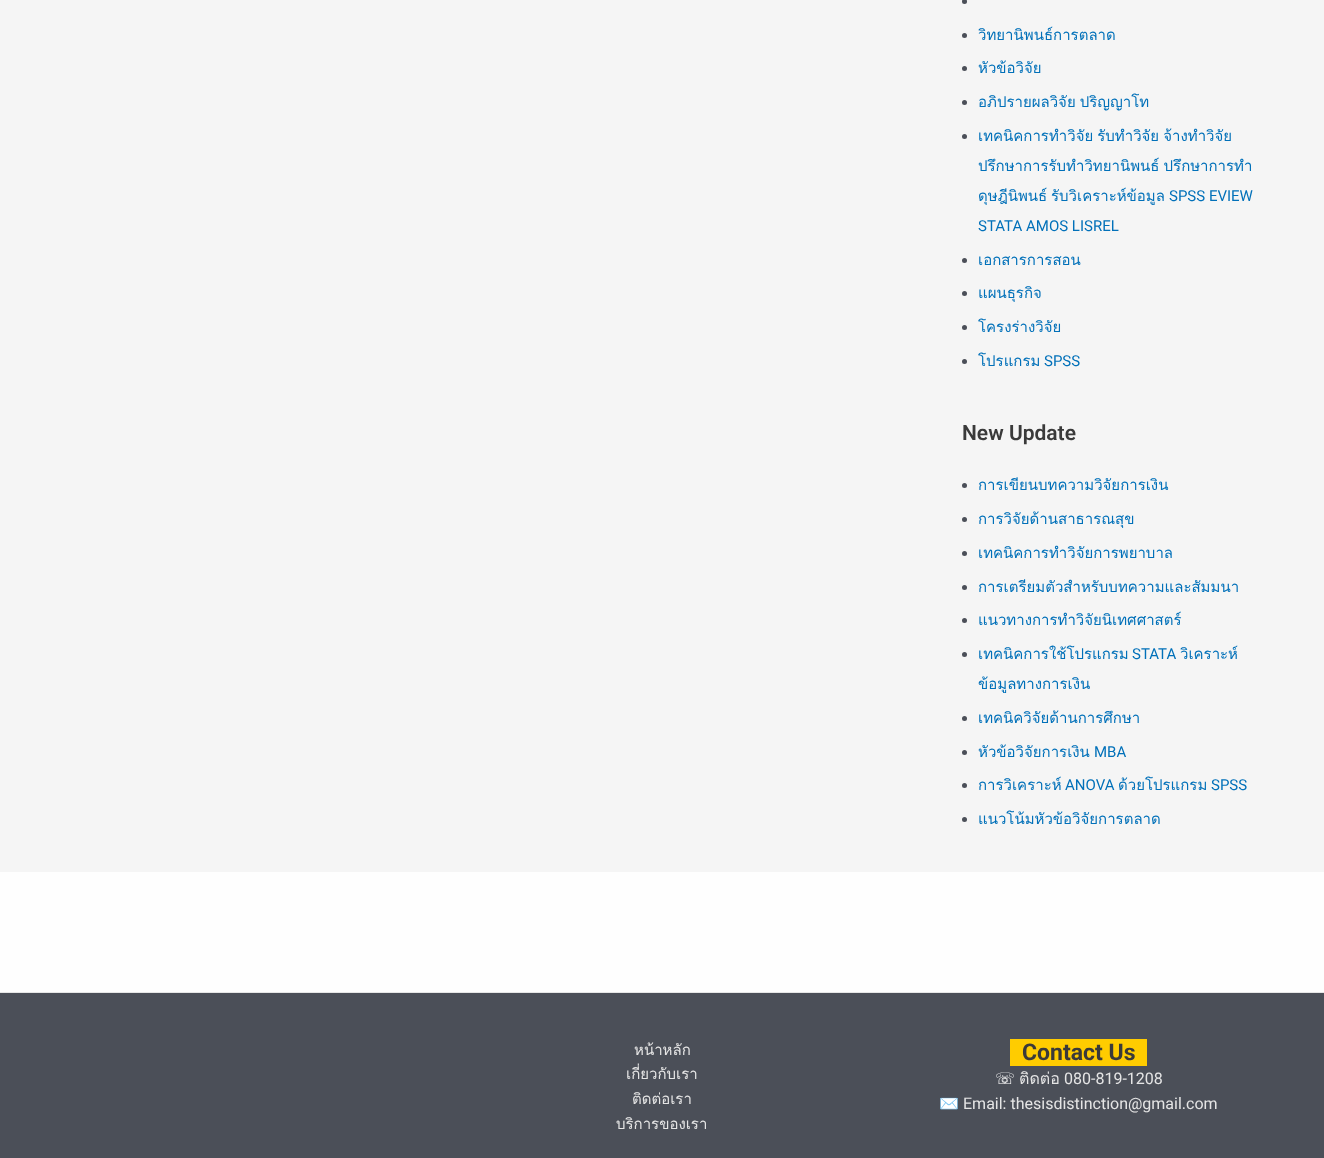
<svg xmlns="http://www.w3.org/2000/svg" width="1324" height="1158">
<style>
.a{font:15px Loma;fill:#0170b9}
.b{font:15px Roboto;fill:#0170b9}
.c{font:600 21px Roboto;fill:#3a3a3a}
.d{font:15px Loma;fill:#e5e5e5}
.e{font:bold 23px Roboto;fill:#3a3a3a}
.f{font:16px DejaVu Sans;fill:#fff}
.g{font:16px Loma;fill:#e5e5e5}
.h{font:16px Roboto;fill:#e5e5e5}
.i{font:16px Noto Color Emoji;fill:#e5e5e5}
</style>
<rect width="100%" height="100%" fill="#f5f5f5"/>
<circle fill="#4b4f58" cx="964.5" cy="1.5" r="2.5"/>
<circle fill="#4b4f58" cx="964.5" cy="35.5" r="2.5"/>
<circle fill="#4b4f58" cx="964.5" cy="68.5" r="2.5"/>
<circle fill="#4b4f58" cx="964.5" cy="102.5" r="2.5"/>
<circle fill="#4b4f58" cx="964.5" cy="136.5" r="2.5"/>
<circle fill="#4b4f58" cx="964.5" cy="260.5" r="2.5"/>
<circle fill="#4b4f58" cx="964.5" cy="293.5" r="2.5"/>
<circle fill="#4b4f58" cx="964.5" cy="327.5" r="2.5"/>
<circle fill="#4b4f58" cx="964.5" cy="361.5" r="2.5"/>
<circle fill="#4b4f58" cx="964.5" cy="485.5" r="2.5"/>
<circle fill="#4b4f58" cx="964.5" cy="519.5" r="2.5"/>
<circle fill="#4b4f58" cx="964.5" cy="553.5" r="2.5"/>
<circle fill="#4b4f58" cx="964.5" cy="587.5" r="2.5"/>
<circle fill="#4b4f58" cx="964.5" cy="620.5" r="2.5"/>
<circle fill="#4b4f58" cx="964.5" cy="654.5" r="2.5"/>
<circle fill="#4b4f58" cx="964.5" cy="718.5" r="2.5"/>
<circle fill="#4b4f58" cx="964.5" cy="752.5" r="2.5"/>
<circle fill="#4b4f58" cx="964.5" cy="785.5" r="2.5"/>
<circle fill="#4b4f58" cx="964.5" cy="819.5" r="2.5"/>
<path fill="#fefefe" d="M0 872h1324v120H0z"/>
<path fill="#4b4f58" d="M0 993h1324v165H0z"/>
<path fill="#e6e6e6" d="M0 992h1324v1H0z"/>
<path fill="#fc0" d="M1010 1039h137v27H1010z"/>
<text class="a" x="978" y="40">วิทยานิพนธ์การตลาด</text>
<text class="a" x="978" y="73">หัวข้อวิจัย</text>
<text class="a" x="978" y="107" word-spacing="-1">อภิปรายผลวิจัย ปริญญาโท</text>
<text class="a" x="978" y="141" word-spacing="-1">เทคนิคการทำวิจัย รับทำวิจัย จ้างทำวิจัย</text>
<text class="a" x="978" y="171" word-spacing="-1">ปรึกษาการรับทำวิทยานิพนธ์ ปรึกษาการทำ</text>
<text class="a" x="978" y="201">ดุษฎีนิพนธ์</text>
<text class="a" x="1051" y="201">รับวิเคราะห์ข้อมูล</text>
<text class="b" x="1169" y="201">SPSS EVIEW</text>
<text class="b" x="978" y="231">STATA AMOS LISREL</text>
<text class="a" x="978" y="265">เอกสารการสอน</text>
<text class="a" x="978" y="298">แผนธุรกิจ</text>
<text class="a" x="978" y="332">โครงร่างวิจัย</text>
<text class="a" x="978" y="366">โปรแกรม</text>
<text class="b" x="1044" y="366">SPSS</text>
<text class="c" x="962" y="440">New Update</text>
<text class="a" x="978" y="490">การเขียนบทความวิจัยการเงิน</text>
<text class="a" x="978" y="524">การวิจัยด้านสาธารณสุข</text>
<text class="a" x="978" y="558">เทคนิคการทำวิจัยการพยาบาล</text>
<text class="a" x="978" y="592">การเตรียมตัวสำหรับบทความและสัมมนา</text>
<text class="a" x="978" y="625">แนวทางการทำวิจัยนิเทศศาสตร์</text>
<text class="a" x="978" y="659">เทคนิคการใช้โปรแกรม</text>
<text class="b" x="1132" y="659">STATA</text>
<text class="a" x="1180" y="659">วิเคราะห์</text>
<text class="a" x="978" y="689">ข้อมูลทางการเงิน</text>
<text class="a" x="978" y="723">เทคนิควิจัยด้านการศึกษา</text>
<text class="a" x="978" y="757">หัวข้อวิจัยการเงิน</text>
<text class="b" x="1094" y="757">MBA</text>
<text class="a" x="978" y="790">การวิเคราะห์</text>
<text class="b" x="1065" y="790">ANOVA</text>
<text class="a" x="1118" y="790">ด้วยโปรแกรม</text>
<text class="b" x="1211" y="790">SPSS</text>
<text class="a" x="978" y="824">แนวโน้มหัวข้อวิจัยการตลาด</text>
<text class="d" x="634" y="1055">หน้าหลัก</text>
<text class="d" x="626" y="1079">เกี่ยวกับเรา</text>
<text class="d" x="632" y="1104">ติดต่อเรา</text>
<text class="d" x="616" y="1129">บริการของเรา</text>
<text class="e" x="1022" y="1060">Contact Us</text>
<text class="f" x="995" y="1084">☏</text>
<text class="g" x="1019" y="1084">ติดต่อ</text>
<text class="h" x="1064" y="1084">080-819-1208</text>
<text class="i" x="939" y="1109">✉️</text>
<text class="h" x="963" y="1109">Email: thesisdistinction@gmail.com</text>
</svg>
